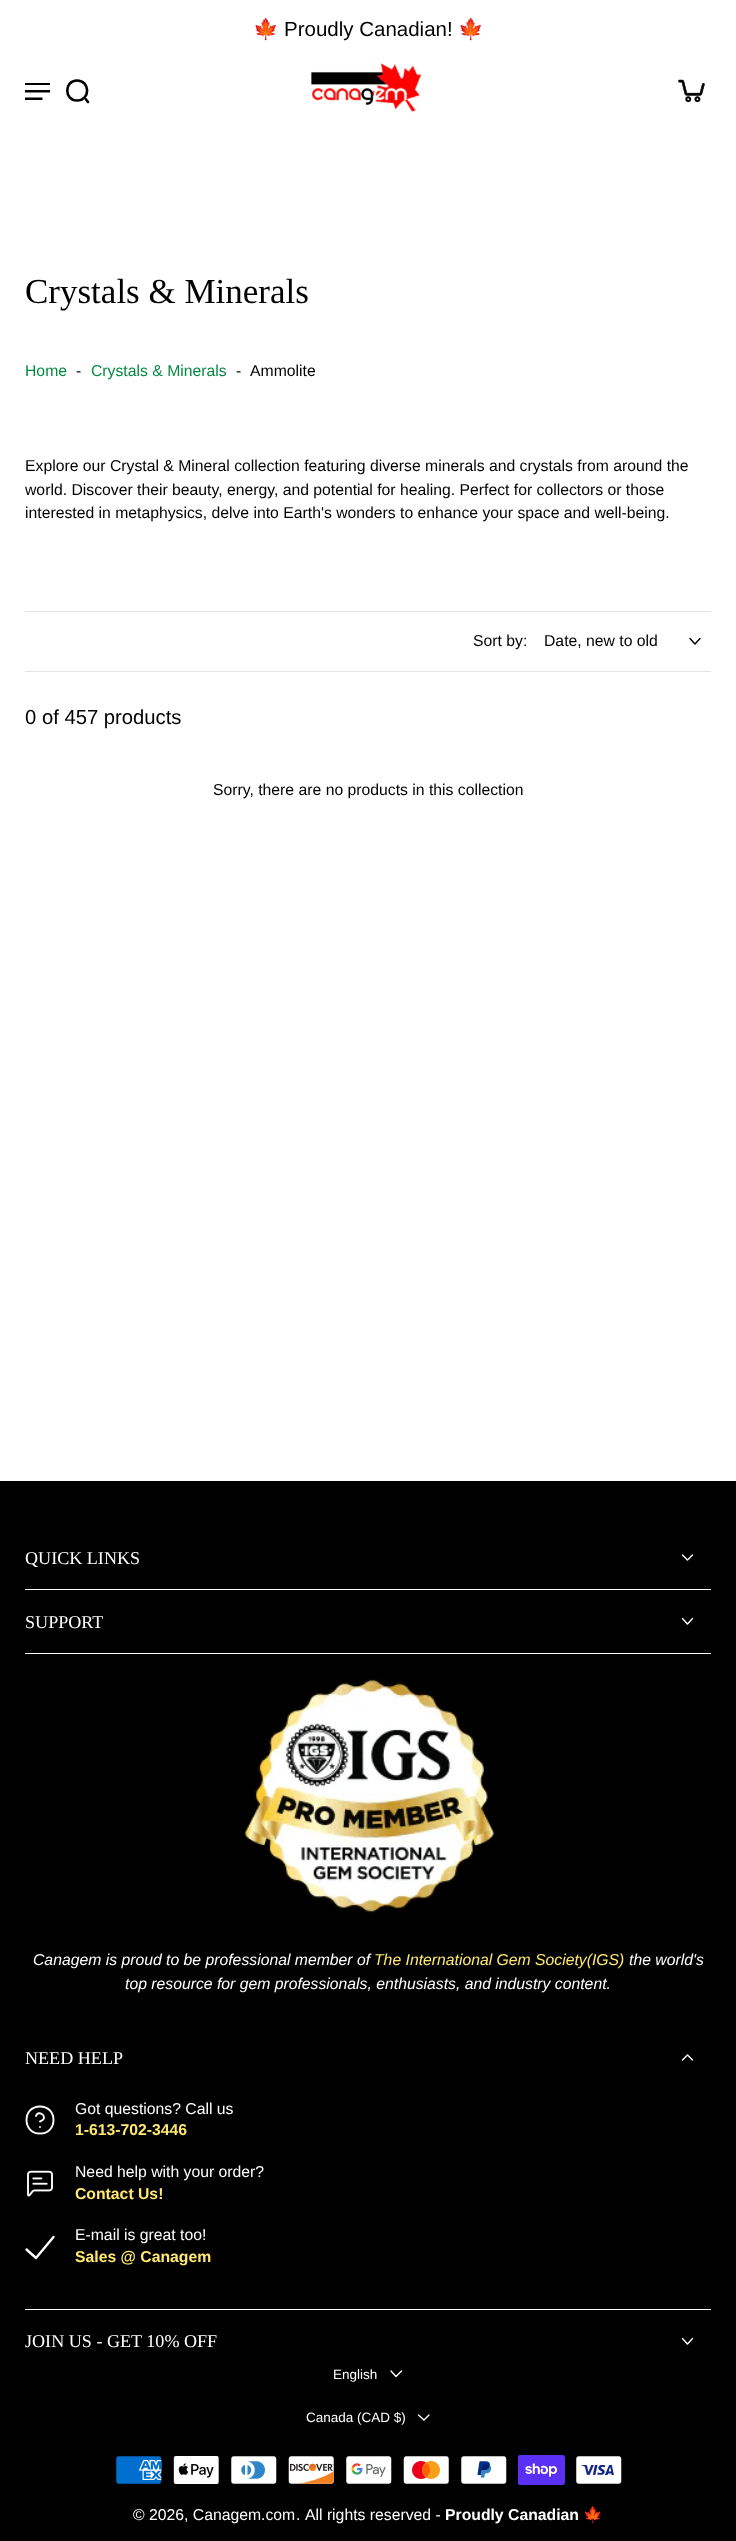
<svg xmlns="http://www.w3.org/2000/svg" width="736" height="2541">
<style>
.a{font:20.5px Noto Color Emoji;fill:#000}
.b{font:20.5px Liberation Sans;fill:#000}
.c{font:35px Liberation Serif;fill:#000}
.d{font:15.75px Liberation Sans;fill:#058942}
.e{font:15.75px Liberation Sans;fill:#000}
.f{font:20.25px Liberation Sans;fill:#000}
.g{font:18.1px Liberation Serif;fill:#fff}
.h{font:italic 15.75px Liberation Sans;fill:#fff}
.i{font:italic 15.75px Liberation Sans;fill:#ffe86f}
.j{font:15.75px Liberation Sans;fill:#fff}
.k{font:bold 15.75px Liberation Sans;fill:#ffe86f}
.l{font:13.5px Liberation Sans;fill:#fff}
.m{font:bold 15.75px Liberation Sans;fill:#fff}
.n{font:15.75px Noto Color Emoji;fill:#fff}
</style>
<rect width="100%" height="100%" fill="#fff"/>
<image href="1.png" x="310" y="63" width="115" height="51"/>
<image href="2.png" x="25" y="83" width="25" height="17"/>
<path fill="none" stroke="#000" stroke-width="2.6" stroke-linecap="round" stroke-linejoin="round" d="M77 100.5c13.5 0 13.5-20 0-20c-13 0-13 20 0 20zm11 1.5l-2-2.5"/>
<image href="3.png" x="678" y="79" width="27" height="24"/>
<path fill="#e3e3e3" d="M25 611h686v1H25z"/>
<path fill="#e3e3e3" d="M25 671h686v1H25z"/>
<path fill="none" stroke="#000" stroke-width="1.4" stroke-linecap="round" stroke-linejoin="round" d="M690 638.5l5 5.5l5-5.5"/>
<path fill="#000" d="M0 1481h736v1060H0z"/>
<path fill="#fff" d="M25 1589h686v1H25z"/>
<path fill="none" stroke="#fff" stroke-width="1.4" stroke-linecap="round" stroke-linejoin="round" d="M682.5 1555l5 5l5-5"/>
<path fill="#fff" d="M25 1653h686v1H25z"/>
<path fill="none" stroke="#fff" stroke-width="1.4" stroke-linecap="round" stroke-linejoin="round" d="M682.5 1618.5l5 5.5l5-5.5"/>
<image href="4.png" x="244" y="1678" width="250" height="237"/>
<path fill="#fff" d="M25 2309h686v1H25z"/>
<path fill="none" stroke="#fff" stroke-width="1.4" stroke-linecap="round" stroke-linejoin="round" d="M692.5 2060l-5-5l-5 5"/>
<path fill="none" stroke="#fff" stroke-width="1.9" stroke-linecap="round" stroke-linejoin="round" d="M40 2133.5c18 0 18-27 0-27c-18 0-18 27 0 27zm-4-17.5c2.5-7.5 14 2 4 5.5m0 5.5h0"/>
<image href="5.png" x="27" y="2170" width="26" height="27"/>
<path fill="none" stroke="#fff" stroke-width="2.4" stroke-linecap="round" stroke-linejoin="round" d="M53.5 2237l-17.5 21l-9.5-8.5"/>
<path fill="none" stroke="#fff" stroke-width="1.4" stroke-linecap="round" stroke-linejoin="round" d="M682.5 2338.5l5 5.5l5-5.5"/>
<path fill="none" stroke="#fff" stroke-width="1.4" stroke-linecap="round" stroke-linejoin="round" d="M391 2371l5 5.5l5.5-5.5"/>
<path fill="none" stroke="#fff" stroke-width="1.4" stroke-linecap="round" stroke-linejoin="round" d="M418.5 2415l5.5 5l5-5"/>
<image href="6.png" x="116" y="2456" width="46" height="28"/>
<image href="7.png" x="173" y="2456" width="46" height="28"/>
<image href="8.png" x="231" y="2456" width="46" height="28"/>
<image href="9.png" x="288" y="2456" width="46" height="28"/>
<image href="10.png" x="346" y="2456" width="46" height="28"/>
<image href="11.png" x="403" y="2456" width="46" height="28"/>
<image href="12.png" x="461" y="2456" width="46" height="28"/>
<image href="13.png" x="518" y="2455" width="47" height="30"/>
<image href="14.png" x="576" y="2456" width="46" height="28"/>
<text class="a" x="253" y="36">🍁</text>
<text class="b" x="284" y="36">Proudly Canadian!</text>
<text class="a" x="458" y="36">🍁</text>
<text class="c" x="25" y="303">Crystals &amp; Minerals</text>
<text class="d" x="25" y="376">Home</text>
<text class="e" x="76" y="376">-</text>
<text class="d" x="91" y="376">Crystals &amp; Minerals</text>
<text class="e" x="236" y="376">-</text>
<text class="e" x="250" y="376">Ammolite</text>
<text class="e" x="25" y="471">Explore our Crystal &amp; Mineral collection featuring diverse minerals and crystals from around the</text>
<text class="e" x="25" y="495">world. Discover their beauty, energy, and potential for healing. Perfect for collectors or those</text>
<text class="e" x="25" y="518">interested in metaphysics, delve into Earth's wonders to enhance your space and well-being.</text>
<text class="e" x="473" y="646">Sort by:</text>
<text class="e" x="544" y="646">Date, new to old</text>
<text class="f" x="25" y="724">0 of 457 products</text>
<text class="e" x="213" y="795">Sorry, there are no products in this collection</text>
<text class="g" x="25" y="1564">QUICK LINKS</text>
<text class="g" x="25" y="1628">SUPPORT</text>
<text class="h" x="33" y="1965">Canagem is proud to be professional member of</text>
<text class="i" x="374" y="1965">The International Gem Society(IGS)</text>
<text class="h" x="629" y="1965">the world's</text>
<text class="h" x="125" y="1989">top resource for gem professionals, enthusiasts, and industry content.</text>
<text class="g" x="25" y="2064">NEED HELP</text>
<text class="j" x="75" y="2114">Got questions? Call us</text>
<text class="k" x="75" y="2135">1-613-702-3446</text>
<text class="j" x="75" y="2177">Need help with your order?</text>
<text class="k" x="75" y="2199">Contact Us!</text>
<text class="j" x="75" y="2240">E-mail is great too!</text>
<text class="k" x="75" y="2262">Sales @ Canagem</text>
<text class="g" x="25" y="2347">JOIN US - GET 10% OFF</text>
<text class="l" x="333" y="2379">English</text>
<text class="l" x="306" y="2422">Canada (CAD $)</text>
<text class="j" x="133" y="2520">© 2026, Canagem.com</text>
<text class="j" x="296" y="2520">.</text>
<text class="j" x="305" y="2520">All rights reserved -</text>
<text class="m" x="445" y="2520">Proudly Canadian</text>
<text class="n" x="583" y="2520">🍁</text>
</svg>
